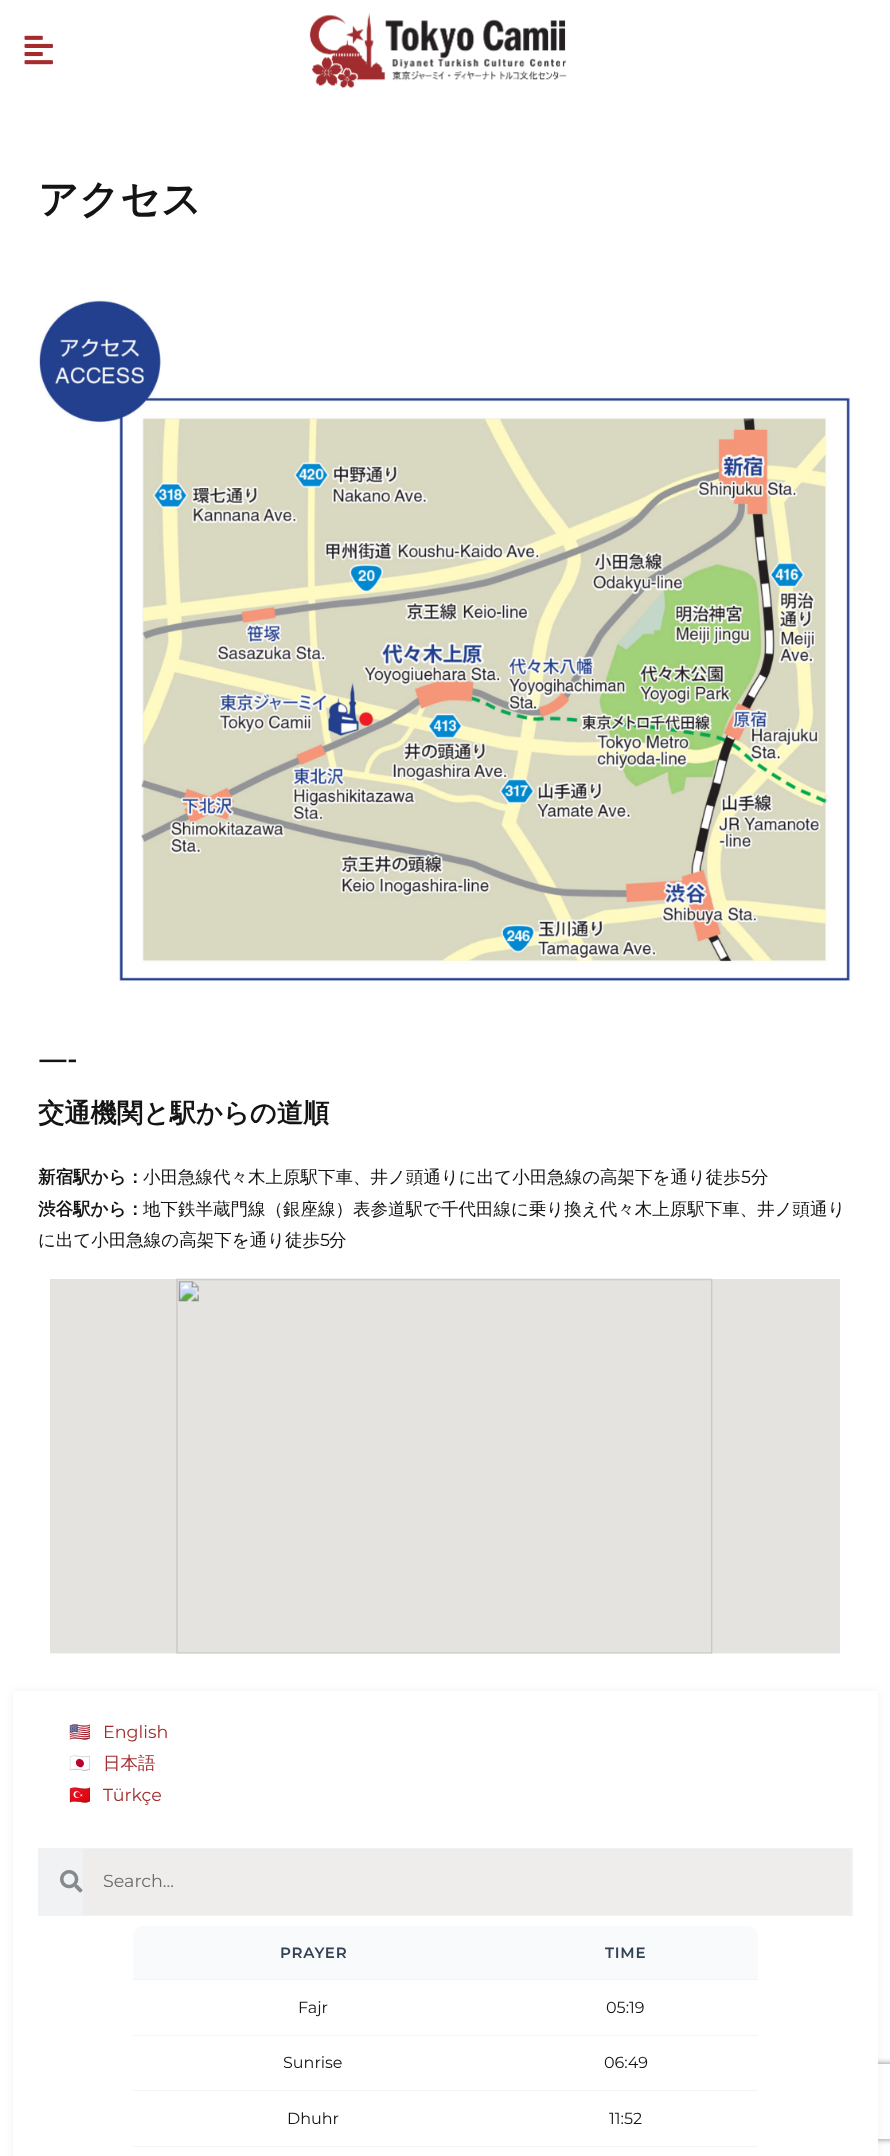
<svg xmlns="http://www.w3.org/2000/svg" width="890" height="2156">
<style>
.a{font:bold 40px WenQuanYi Zen Hei;fill:#141414}
.b{font:bold 26.25px Questrial;fill:#141414}
.c{font:bold 26.25px WenQuanYi Zen Hei;fill:#141414}
.d{font:bold 17.5px WenQuanYi Zen Hei;fill:#141414}
.e{font:500 17.5px WenQuanYi Zen Hei;fill:#141414}
.f{font:17.5px Montserrat;fill:#141414}
.g{font:17.5px Noto Color Emoji;fill:#141414}
.h{font:17.5px Montserrat;fill:#a42c2c}
.i{font:500 17.5px WenQuanYi Zen Hei;fill:#a42c2c}
.j{font:17.5px Montserrat;fill:#6b6b6a}
.k{font:600 15px Montserrat;letter-spacing:0.75px;fill:#334155}
.l{font:16px Montserrat;fill:#141414}
</style>
<defs>
<clipPath id="clip1"><path d="M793 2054h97v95h-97zm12.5 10h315c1.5 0 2.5 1 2.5 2.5v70c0 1.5-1 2.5-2.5 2.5h-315c-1.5 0-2.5-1-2.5-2.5v-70c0-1.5 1-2.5 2.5-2.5z" clip-rule="evenodd"/></clipPath>
</defs>
<rect width="100%" height="100%" fill="#fff"/>
<image href="1.png" x="24" y="35" width="29" height="30"/>
<image href="2.png" x="309" y="13" width="258" height="75"/>
<image href="3.png" x="37" y="300" width="815" height="682"/>
<image href="4.png" x="50" y="1278" width="790" height="376"/>
<path fill="#0000000d" filter="blur(5px)" d="M13 1691h865v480H13z"/>
<g clip-path="url(#clip1)">
<rect fill="#808080" filter="blur(3px)" x="803" y="2064" width="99" height="75" rx="2.5"/>
</g>
<path fill="#fff" d="M13 1691h865v465H13z"/>
<path fill="#f1f2f3" d="M38 1848h815v68H38z"/>
<image href="5.png" x="60" y="1870" width="23" height="23"/>
<path fill="#eeedec" d="M83 1849h768v66H83z"/>
<path fill="#f8fafc" d="M143 1926h352v54h-362v-44c0-5.5 4.5-10 10-10z"/>
<path fill="#f1f5f9" d="M133 1979h362v1H133z"/>
<path fill="#f8fafc" d="M495 1926h253c5.5 0 10 4.5 10 10v44h-263z"/>
<path fill="#f1f5f9" d="M495 1979h263v1H495z"/>
<path fill="#f1f5f9" d="M133 2035h625v1H133z"/>
<path fill="#f1f5f9" d="M133 2090h625v1H133z"/>
<path fill="#f1f5f9" d="M133 2146h625v1H133z"/>
<text class="a" x="38" y="213">アクセス</text>
<text class="b" x="38" y="1069">—-</text>
<text class="c" x="38" y="1122">交通機関と駅からの道順</text>
<text class="d" x="38" y="1183">新宿駅から：</text>
<text class="e" x="143" y="1183">小田急線代々木上原駅下車、井ノ頭通りに出て小田急線の高架下を通り徒歩</text>
<text class="f" x="741" y="1183">5</text>
<text class="e" x="751" y="1183">分</text>
<text class="d" x="38" y="1215">渋谷駅から：</text>
<text class="e" x="143" y="1215">地下鉄半蔵門線（銀座線）表参道駅で千代田線に乗り換え代々木上原駅下車、井ノ頭通り</text>
<text class="e" x="38" y="1246">に出て小田急線の高架下を通り徒歩</text>
<text class="f" x="320" y="1246">5</text>
<text class="e" x="329" y="1246">分</text>
<text class="g" x="69" y="1738">🇺🇸</text>
<text class="h" x="103" y="1738">English</text>
<text class="g" x="69" y="1769">🇯🇵</text>
<text class="i" x="103" y="1769">日本語</text>
<text class="g" x="69" y="1801">🇹🇷</text>
<text class="h" x="103" y="1801">Türkçe</text>
<text class="j" x="103" y="1887">Search...</text>
<text class="k" x="280" y="1958">PRAYER</text>
<text class="k" x="605" y="1958">TIME</text>
<text class="l" x="298" y="2013">Fajr</text>
<text class="l" x="606" y="2013">05:19</text>
<text class="l" x="283" y="2068">Sunrise</text>
<text class="l" x="604" y="2068">06:49</text>
<text class="l" x="287" y="2124">Dhuhr</text>
<text class="l" x="609" y="2124">11:52</text>
</svg>
